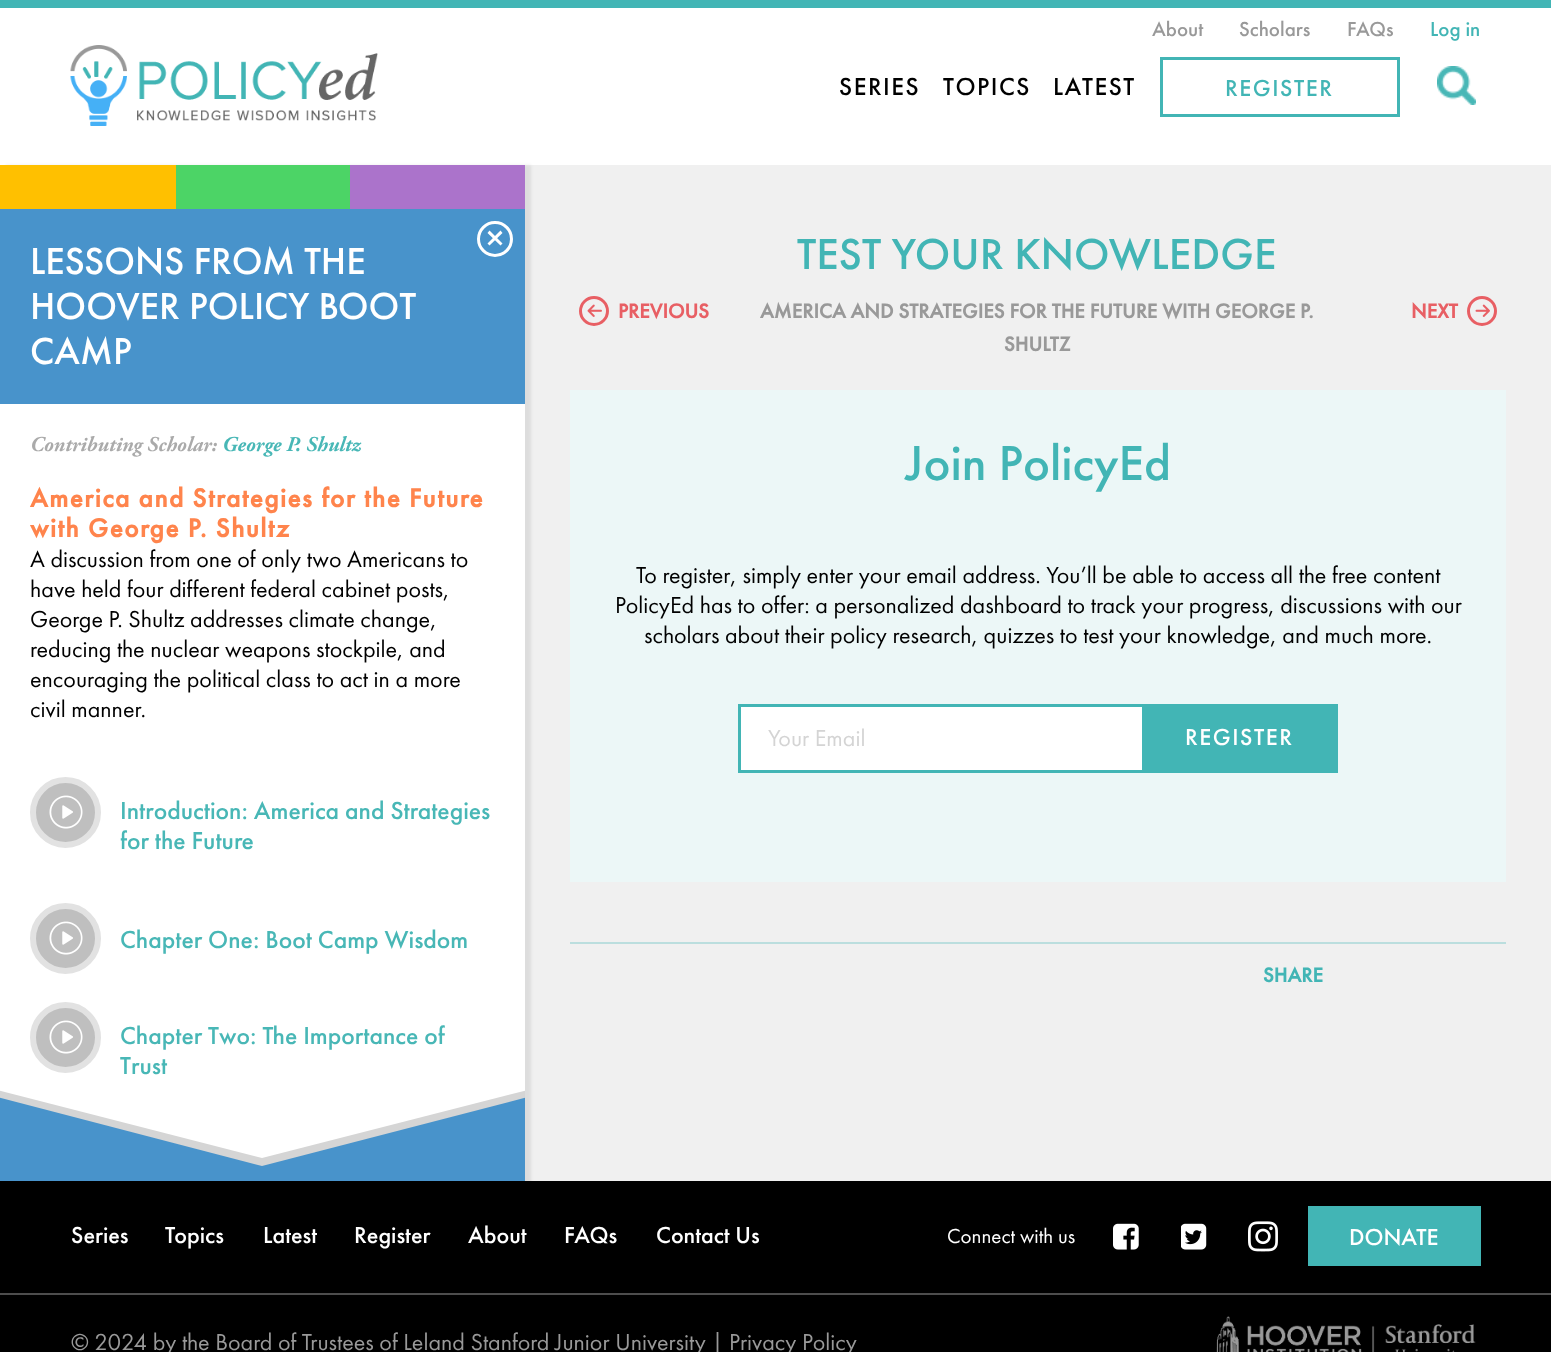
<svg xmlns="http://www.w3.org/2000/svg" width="1551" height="1352">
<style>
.a{font:500 21px Futura PT;fill:#999}
.b{font:500 21px Futura PT;fill:#42b5b5}
.c{font:500 25.5px Futura PT;letter-spacing:1.5px;fill:#000}
.d{font:500 24px Futura PT;letter-spacing:1.5px;fill:#42b5b5}
.e{font:500 39px Futura PT;fill:#fff}
.f{font:italic bold 21px Adobe Garamond;fill:#aaa}
.g{font:italic bold 21px Adobe Garamond;fill:#48b7b6}
.h{font:bold 27px Futura PT;letter-spacing:1.5px;fill:#ff844c}
.i{font:24px Futura PT;fill:#000}
.j{font:500 25.5px Futura PT;fill:#48b7b6}
.k{font:500 45px Futura PT;fill:#42b5b5}
.l{font:bold 21px Futura PT;fill:#e85f64}
.m{font:bold 21px Futura PT;fill:#999}
.n{font:500 51px Futura PT;fill:#42b5b5}
.o{font:24px Futura PT;fill:#d4d4d4}
.p{font:500 24px Futura PT;letter-spacing:1.5px;fill:#fff}
.q{font:bold 21px Futura PT;fill:#42b5b5}
.r{font:500 24px Futura PT;fill:#fff}
.s{font:21px Futura PT;fill:#fff}
.t{font:24px Futura PT;fill:#999}
</style>
<defs>
<clipPath id="clip1"><path d="M0 1083h525v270H0z"/></clipPath>
</defs>
<rect width="100%" height="100%" fill="#f0f0f0"/>
<path fill="#fff" d="M0 8h1551v157H0z"/>
<path fill="#42b5b5" d="M0 0h1551v8H0z"/>
<image href="1.png" x="70" y="45" width="308" height="81"/>
<path fill="none" stroke="#42b5b5" stroke-width="3" d="M1161.5 58.5h237v57H1161.5z"/>
<image href="2.png" x="1437" y="66" width="39" height="39"/>
<path fill="#00000014" filter="blur(1.5px)" d="M6 165h525v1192H6z"/>
<path fill="#fff" d="M0 404h525v679H0z"/>
<path fill="#ffc000" d="M0 165h176v44H0z"/>
<path fill="#4cd466" d="M176 165h174v44H176z"/>
<path fill="#ab73cb" d="M350 165h175v44H350z"/>
<path fill="#4893cb" d="M0 209h525v195H0z"/>
<circle fill="none" stroke="#fff" stroke-width="3" cx="495" cy="239" r="16.5"/>
<path fill="#fff" d="M487.5 243.5l13-13l2 2.5l-13 12.5z"/>
<path fill="#fff" d="M489.5 230.5l13 13l-2 2l-13-12.5z"/>
<circle fill="#bfbfbf" stroke="#e2e2e2" stroke-width="6" cx="65.5" cy="812.5" r="32.5"/>
<image href="3.png" x="49" y="795" width="34" height="34"/>
<circle fill="#bfbfbf" stroke="#e2e2e2" stroke-width="6" cx="65.5" cy="938.5" r="32.5"/>
<image href="3.png" x="49" y="921" width="34" height="34"/>
<circle fill="#bfbfbf" stroke="#e2e2e2" stroke-width="6" cx="65.5" cy="1037.5" r="32.5"/>
<image href="3.png" x="49" y="1020" width="34" height="34"/>
<path fill="#4893cb" d="M0 1097h525v84H0z"/>
<g clip-path="url(#clip1)">
<path fill="#d5d5d5" d="M-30 1090h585l-293 76z"/>
<path fill="#fff" d="M-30 1083h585l-293 75z"/>
</g>
<circle fill="none" stroke="#e85f64" stroke-width="3" cx="594" cy="311" r="13.5"/>
<image href="4.png" x="587" y="304" width="15" height="13"/>
<circle fill="none" stroke="#e85f64" stroke-width="3" cx="1482" cy="311" r="13.5"/>
<image href="5.png" x="1475" y="304" width="15" height="13"/>
<path fill="#ecf7f7" d="M570 390h936v492H570z"/>
<path fill="#fff" d="M741 707h401v63H741z"/>
<path fill="#42b5b5" d="M738 704h404v3H738z"/>
<path fill="#42b5b5" d="M738 770h404v3H738z"/>
<path fill="#42b5b5" d="M738 704h3v69H738z"/>
<path fill="#42b5b5" d="M1142 704h196v69H1142z"/>
<path fill="#bbdede" d="M570 942h936v2H570z"/>
<path fill="#000" d="M0 1181h1551v171H0z"/>
<image href="6.png" x="1113" y="1223" width="26" height="27"/>
<image href="7.png" x="1181" y="1223" width="26" height="27"/>
<image href="8.png" x="1248" y="1221" width="30" height="31"/>
<path fill="#42b5b5" d="M1308 1206h173v60H1308z"/>
<path fill="#4d4d4d" d="M0 1293h1551v2H0z"/>
<image href="9.png" x="1216" y="1316" width="146" height="36"/>
<image href="10.png" x="1372" y="1324" width="104" height="28"/>
<text class="a" x="1152" y="36">About</text>
<text class="a" x="1239" y="36">Scholars</text>
<text class="a" x="1347" y="36">FAQs</text>
<text class="b" x="1430" y="36">Log in</text>
<text class="c" x="839" y="95">SERIES</text>
<text class="c" x="943" y="95">TOPICS</text>
<text class="c" x="1053" y="95">LATEST</text>
<text class="d" x="1225" y="96">REGISTER</text>
<text class="e" x="30" y="274">LESSONS FROM THE</text>
<text class="e" x="30" y="319">HOOVER POLICY BOOT</text>
<text class="e" x="30" y="364">CAMP</text>
<text class="f" x="30" y="451">Contributing Scholar:</text>
<text class="g" x="222" y="451">George P. Shultz</text>
<text class="h" x="30" y="507">America and Strategies for the Future</text>
<text class="h" x="30" y="537">with George P. Shultz</text>
<text class="i" x="30" y="567">A discussion from one of only two Americans to</text>
<text class="i" x="30" y="597">have held four different federal cabinet posts,</text>
<text class="i" x="30" y="627">George P. Shultz addresses climate change,</text>
<text class="i" x="30" y="657">reducing the nuclear weapons stockpile, and</text>
<text class="i" x="30" y="687">encouraging the political class to act in a more</text>
<text class="i" x="30" y="717">civil manner.</text>
<text class="j" x="120" y="819">Introduction: America and Strategies</text>
<text class="j" x="120" y="849">for the Future</text>
<text class="j" x="120" y="948">Chapter One: Boot Camp Wisdom</text>
<text class="j" x="120" y="1044">Chapter Two: The Importance of</text>
<text class="j" x="120" y="1074">Trust</text>
<text class="k" x="797" y="269">TEST YOUR KNOWLEDGE</text>
<text class="l" x="618" y="318">PREVIOUS</text>
<text class="m" x="760" y="318">AMERICA AND STRATEGIES FOR THE FUTURE WITH GEORGE P.</text>
<text class="m" x="1004" y="351">SHULTZ</text>
<text class="l" x="1411" y="318">NEXT</text>
<text class="n" x="905" y="480">Join PolicyEd</text>
<text class="i" x="636" y="583">To register, simply enter your email address. You’ll be able to access all the free content</text>
<text class="i" x="615" y="613">PolicyEd has to offer: a personalized dashboard to track your progress, discussions with our</text>
<text class="i" x="644" y="643">scholars about their policy research, quizzes to test your knowledge, and much more.</text>
<text class="o" x="768" y="746">Your Email</text>
<text class="p" x="1185" y="745">REGISTER</text>
<text class="q" x="1263" y="982">SHARE</text>
<text class="r" x="71" y="1243">Series</text>
<text class="r" x="165" y="1243">Topics</text>
<text class="r" x="263" y="1243">Latest</text>
<text class="r" x="354" y="1243">Register</text>
<text class="r" x="468" y="1243">About</text>
<text class="r" x="564" y="1243">FAQs</text>
<text class="r" x="656" y="1243">Contact Us</text>
<text class="s" x="947" y="1243">Connect with us</text>
<text class="r" x="1349" y="1245">DONATE</text>
<text class="t" x="71" y="1350">© 2024 by the Board of Trustees of Leland Stanford Junior University | Privacy Policy</text>
</svg>
